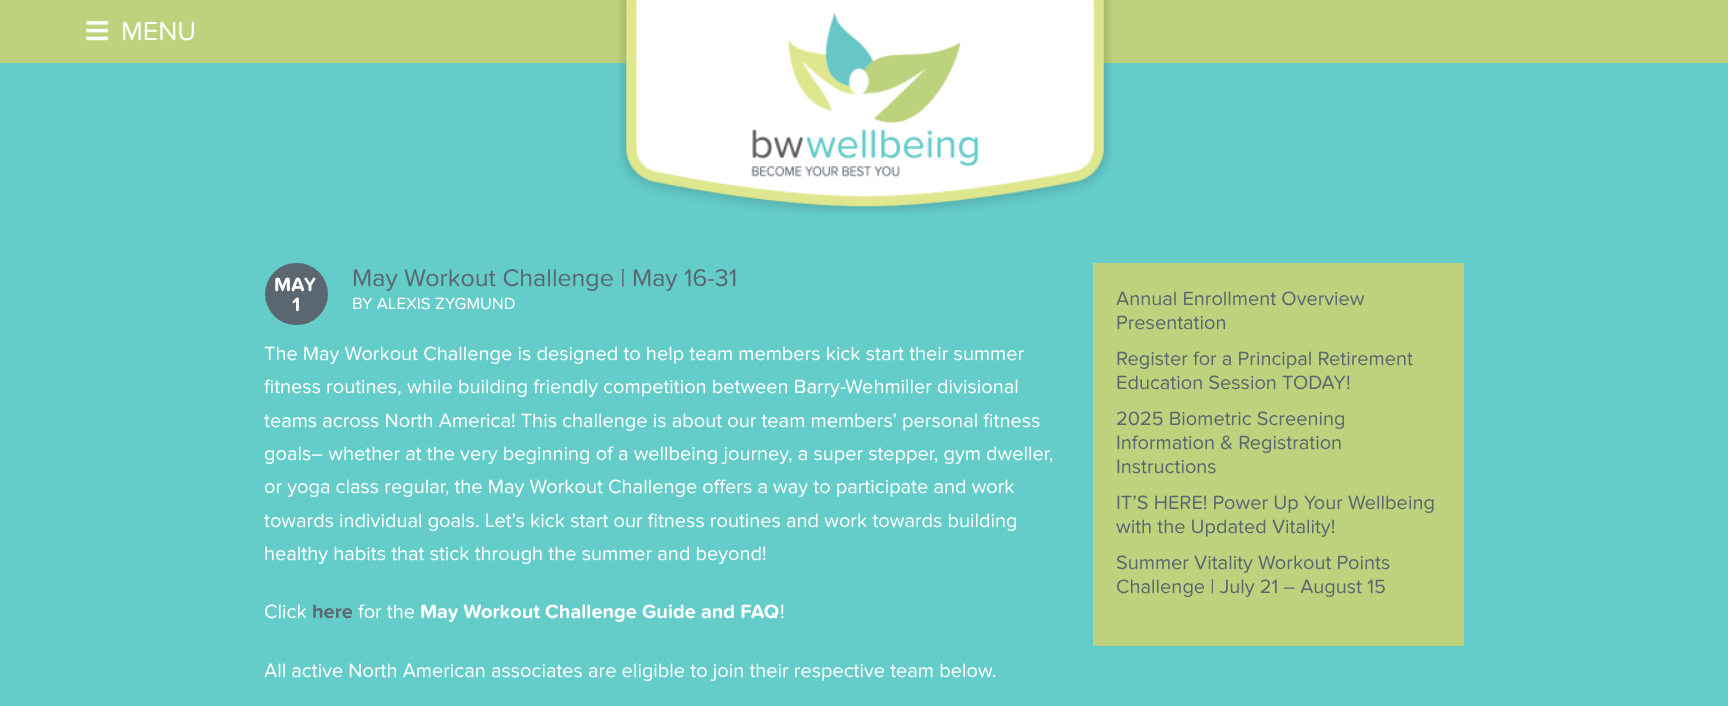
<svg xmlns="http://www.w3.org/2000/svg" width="1728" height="706">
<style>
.a{font:27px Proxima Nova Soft;fill:#fff}
.b{font:bold 20px Proxima Nova Soft;fill:#fff}
.c{font:25px Proxima Nova Soft;fill:#5b6770}
.d{font:16.75px Proxima Nova Soft;fill:#fff}
.e{font:20px Proxima Nova Soft;fill:#fff}
.f{font:bold 20px Proxima Nova Soft;fill:#5b6770}
.g{font:20px Proxima Nova Soft;fill:#5b6770}
</style>
<rect width="100%" height="100%" fill="#64ccc9"/>
<path fill="#bed27d" d="M0 0h1728v63H0z"/>
<image href="1.png" x="86" y="21" width="23" height="20"/>
<image href="2.png" x="618" y="0" width="494" height="214"/>
<rect fill="#5b6770" x="265" y="263" width="63" height="62" rx="31"/>
<path fill="#bed27d" d="M1093 263h371v383H1093z"/>
<text class="a" x="121" y="40">MENU</text>
<text class="b" x="274" y="291">MAY</text>
<text class="b" x="292" y="311">1</text>
<text class="c" x="352" y="286">May Workout Challenge | May 16-31</text>
<text class="d" x="352" y="309">BY ALEXIS ZYGMUND</text>
<text class="e" x="264" y="360">The May Workout Challenge is designed to help team members kick start their summer</text>
<text class="e" x="264" y="393">fitness routines, while building friendly competition between Barry-Wehmiller divisional</text>
<text class="e" x="264" y="427">teams across North America! This challenge is about our team members’ personal fitness</text>
<text class="e" x="264" y="460">goals– whether at the very beginning of a wellbeing journey, a super stepper, gym dweller,</text>
<text class="e" x="264" y="493">or yoga class regular, the May Workout Challenge offers a way to participate and work</text>
<text class="e" x="264" y="527">towards individual goals. Let’s kick start our fitness routines and work towards building</text>
<text class="e" x="264" y="560">healthy habits that stick through the summer and beyond!</text>
<text class="e" x="264" y="618">Click</text>
<text class="f" x="312" y="618">here</text>
<text class="e" x="358" y="618">for the</text>
<text class="b" x="420" y="618">May Workout Challenge Guide and FAQ</text>
<text class="e" x="780" y="618">!</text>
<text class="e" x="264" y="677">All active North American associates are eligible to join their respective team below.</text>
<text class="g" x="1116" y="305">Annual Enrollment Overview</text>
<text class="g" x="1116" y="329">Presentation</text>
<text class="g" x="1116" y="365">Register for a Principal Retirement</text>
<text class="g" x="1116" y="389">Education Session TODAY!</text>
<text class="g" x="1116" y="425">2025 Biometric Screening</text>
<text class="g" x="1116" y="449">Information &amp; Registration</text>
<text class="g" x="1116" y="473">Instructions</text>
<text class="g" x="1116" y="509">IT’S HERE! Power Up Your Wellbeing</text>
<text class="g" x="1116" y="533">with the Updated Vitality!</text>
<text class="g" x="1116" y="569">Summer Vitality Workout Points</text>
<text class="g" x="1116" y="593">Challenge | July 21 – August 15</text>
</svg>
